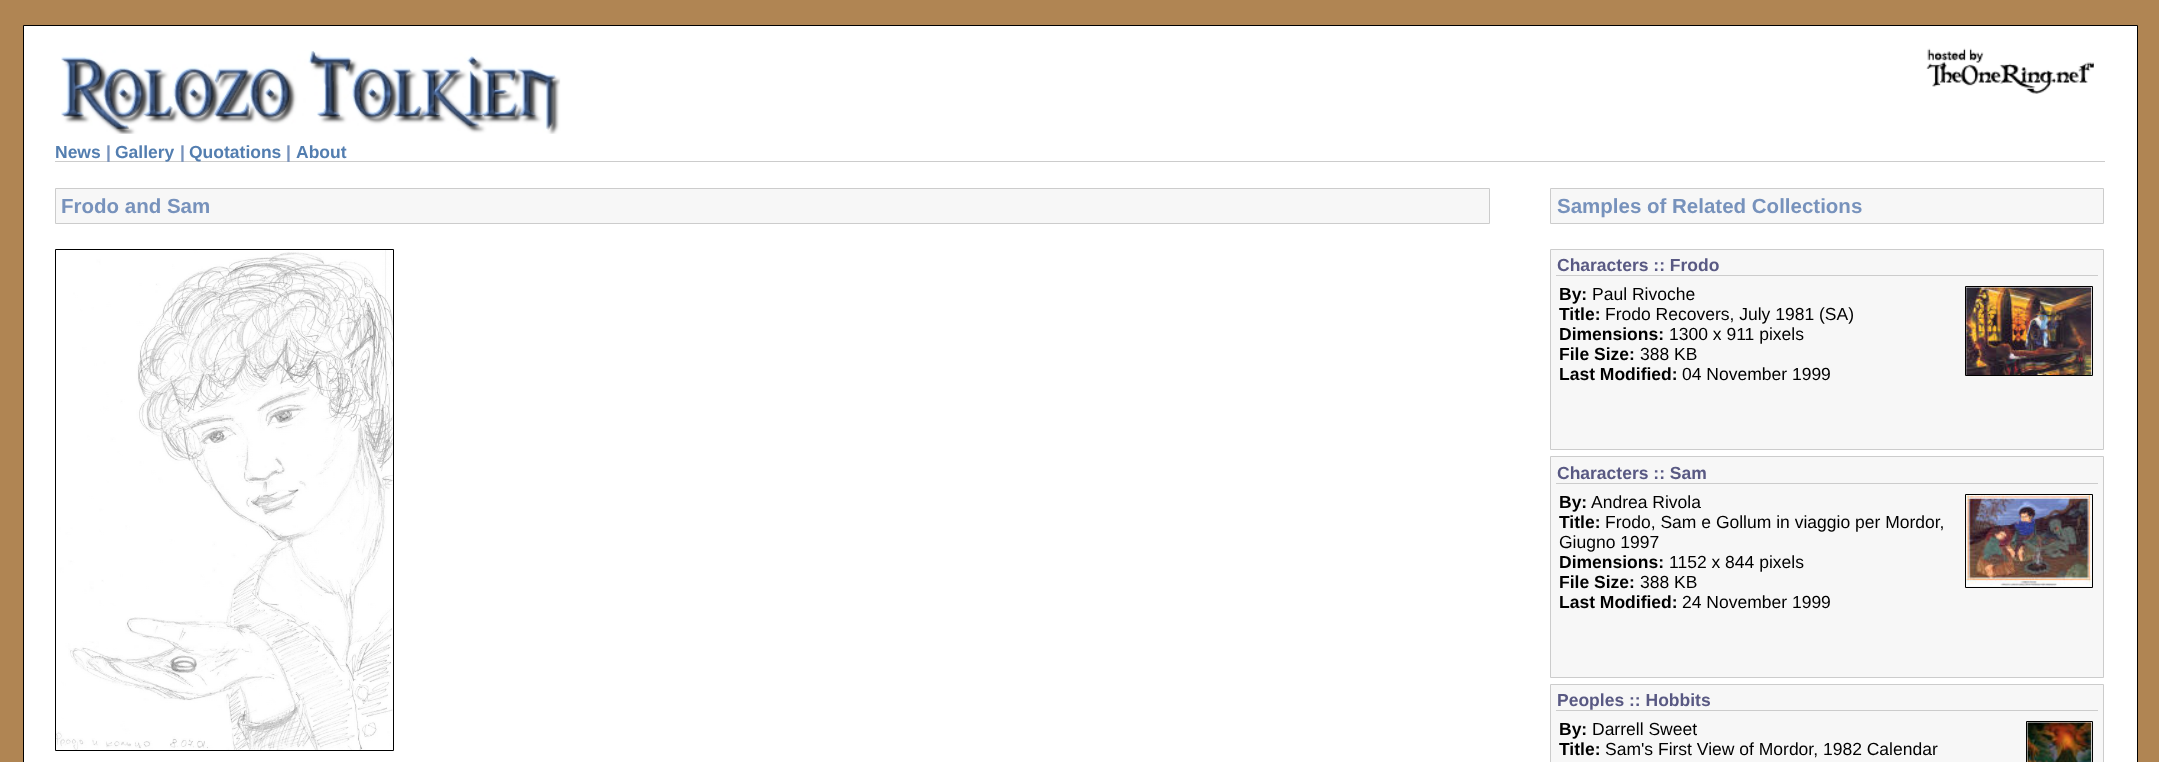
<svg xmlns="http://www.w3.org/2000/svg" width="2159" height="762">
<style>
.a{font:bold 17.5px Liberation Sans;fill:#537eb0}
.b{font:bold 17.5px Liberation Sans;fill:#7792bc}
.c{font:bold 20.5px Liberation Sans;fill:#7792bc}
.d{font:bold 17.5px Liberation Sans;fill:#595983}
.e{font:bold 17.5px Liberation Sans;fill:#000}
.f{font:17.5px Liberation Sans;fill:#000}
</style>
<rect width="100%" height="100%" fill="#b08553"/>
<path fill="#fff" stroke="#000" d="M23.5 25.5h2114v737H23.5z"/>
<image href="1.png" x="61" y="50" width="500" height="84"/>
<image href="2.png" x="1926" y="48" width="168" height="46"/>
<path fill="#ccc" d="M55 161h2050v1H55z"/>
<path fill="#f7f7f7" stroke="#ccc" d="M55.5 188.5h1434v35H55.5z"/>
<path fill="none" stroke="#000" d="M55.5 249.5h338v501H55.5z"/>
<image href="3.png" x="56" y="250" width="337" height="500"/>
<path fill="#f7f7f7" stroke="#ccc" d="M1550.5 188.5h553v35H1550.5z"/>
<path fill="#f7f7f7" stroke="#ccc" d="M1550.5 249.5h553v200H1550.5z"/>
<path fill="#ccc" d="M1556 275h542v1H1556z"/>
<path fill="none" stroke="#000" d="M1965.5 286.5h127v89H1965.5z"/>
<image href="4.png" x="1966" y="287" width="126" height="88"/>
<path fill="#f7f7f7" stroke="#ccc" d="M1550.5 456.5h553v221H1550.5z"/>
<path fill="#ccc" d="M1556 483h542v1H1556z"/>
<path fill="none" stroke="#000" d="M1965.5 494.5h127v93H1965.5z"/>
<image href="5.png" x="1966" y="495" width="126" height="92"/>
<path fill="#f7f7f7" stroke="#ccc" d="M1550.5 684.5h553v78H1550.5z"/>
<path fill="#ccc" d="M1556 710h542v1H1556z"/>
<path fill="none" stroke="#000" d="M2026.5 721.5h66v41H2026.5z"/>
<image href="6.png" x="2027" y="722" width="65" height="40"/>
<text class="a" x="55" y="158">News</text>
<text class="b" x="106" y="158">|</text>
<text class="a" x="115" y="158">Gallery</text>
<text class="b" x="180" y="158">|</text>
<text class="a" x="189" y="158">Quotations</text>
<text class="b" x="286" y="158">|</text>
<text class="a" x="296" y="158">About</text>
<text class="c" x="61" y="213">Frodo and Sam</text>
<text class="c" x="1557" y="213">Samples of Related Collections</text>
<text class="d" x="1557" y="271">Characters :: Frodo</text>
<text class="e" x="1559" y="300">By:</text>
<text class="f" x="1592" y="300">Paul Rivoche</text>
<text class="e" x="1559" y="320">Title:</text>
<text class="f" x="1605" y="320">Frodo Recovers, July 1981 (SA)</text>
<text class="e" x="1559" y="340">Dimensions:</text>
<text class="f" x="1669" y="340">1300 x 911 pixels</text>
<text class="e" x="1559" y="360">File Size:</text>
<text class="f" x="1640" y="360">388 KB</text>
<text class="e" x="1559" y="380">Last Modified:</text>
<text class="f" x="1682" y="380">04 November 1999</text>
<text class="d" x="1557" y="479">Characters :: Sam</text>
<text class="e" x="1559" y="508">By:</text>
<text class="f" x="1591" y="508">Andrea Rivola</text>
<text class="e" x="1559" y="528">Title:</text>
<text class="f" x="1605" y="528">Frodo, Sam e Gollum in viaggio per Mordor,</text>
<text class="f" x="1559" y="548">Giugno 1997</text>
<text class="e" x="1559" y="568">Dimensions:</text>
<text class="f" x="1669" y="568">1152 x 844 pixels</text>
<text class="e" x="1559" y="588">File Size:</text>
<text class="f" x="1640" y="588">388 KB</text>
<text class="e" x="1559" y="608">Last Modified:</text>
<text class="f" x="1682" y="608">24 November 1999</text>
<text class="d" x="1557" y="706">Peoples :: Hobbits</text>
<text class="e" x="1559" y="735">By:</text>
<text class="f" x="1592" y="735">Darrell Sweet</text>
<text class="e" x="1559" y="755">Title:</text>
<text class="f" x="1605" y="755">Sam's First View of Mordor, 1982 Calendar</text>
</svg>
